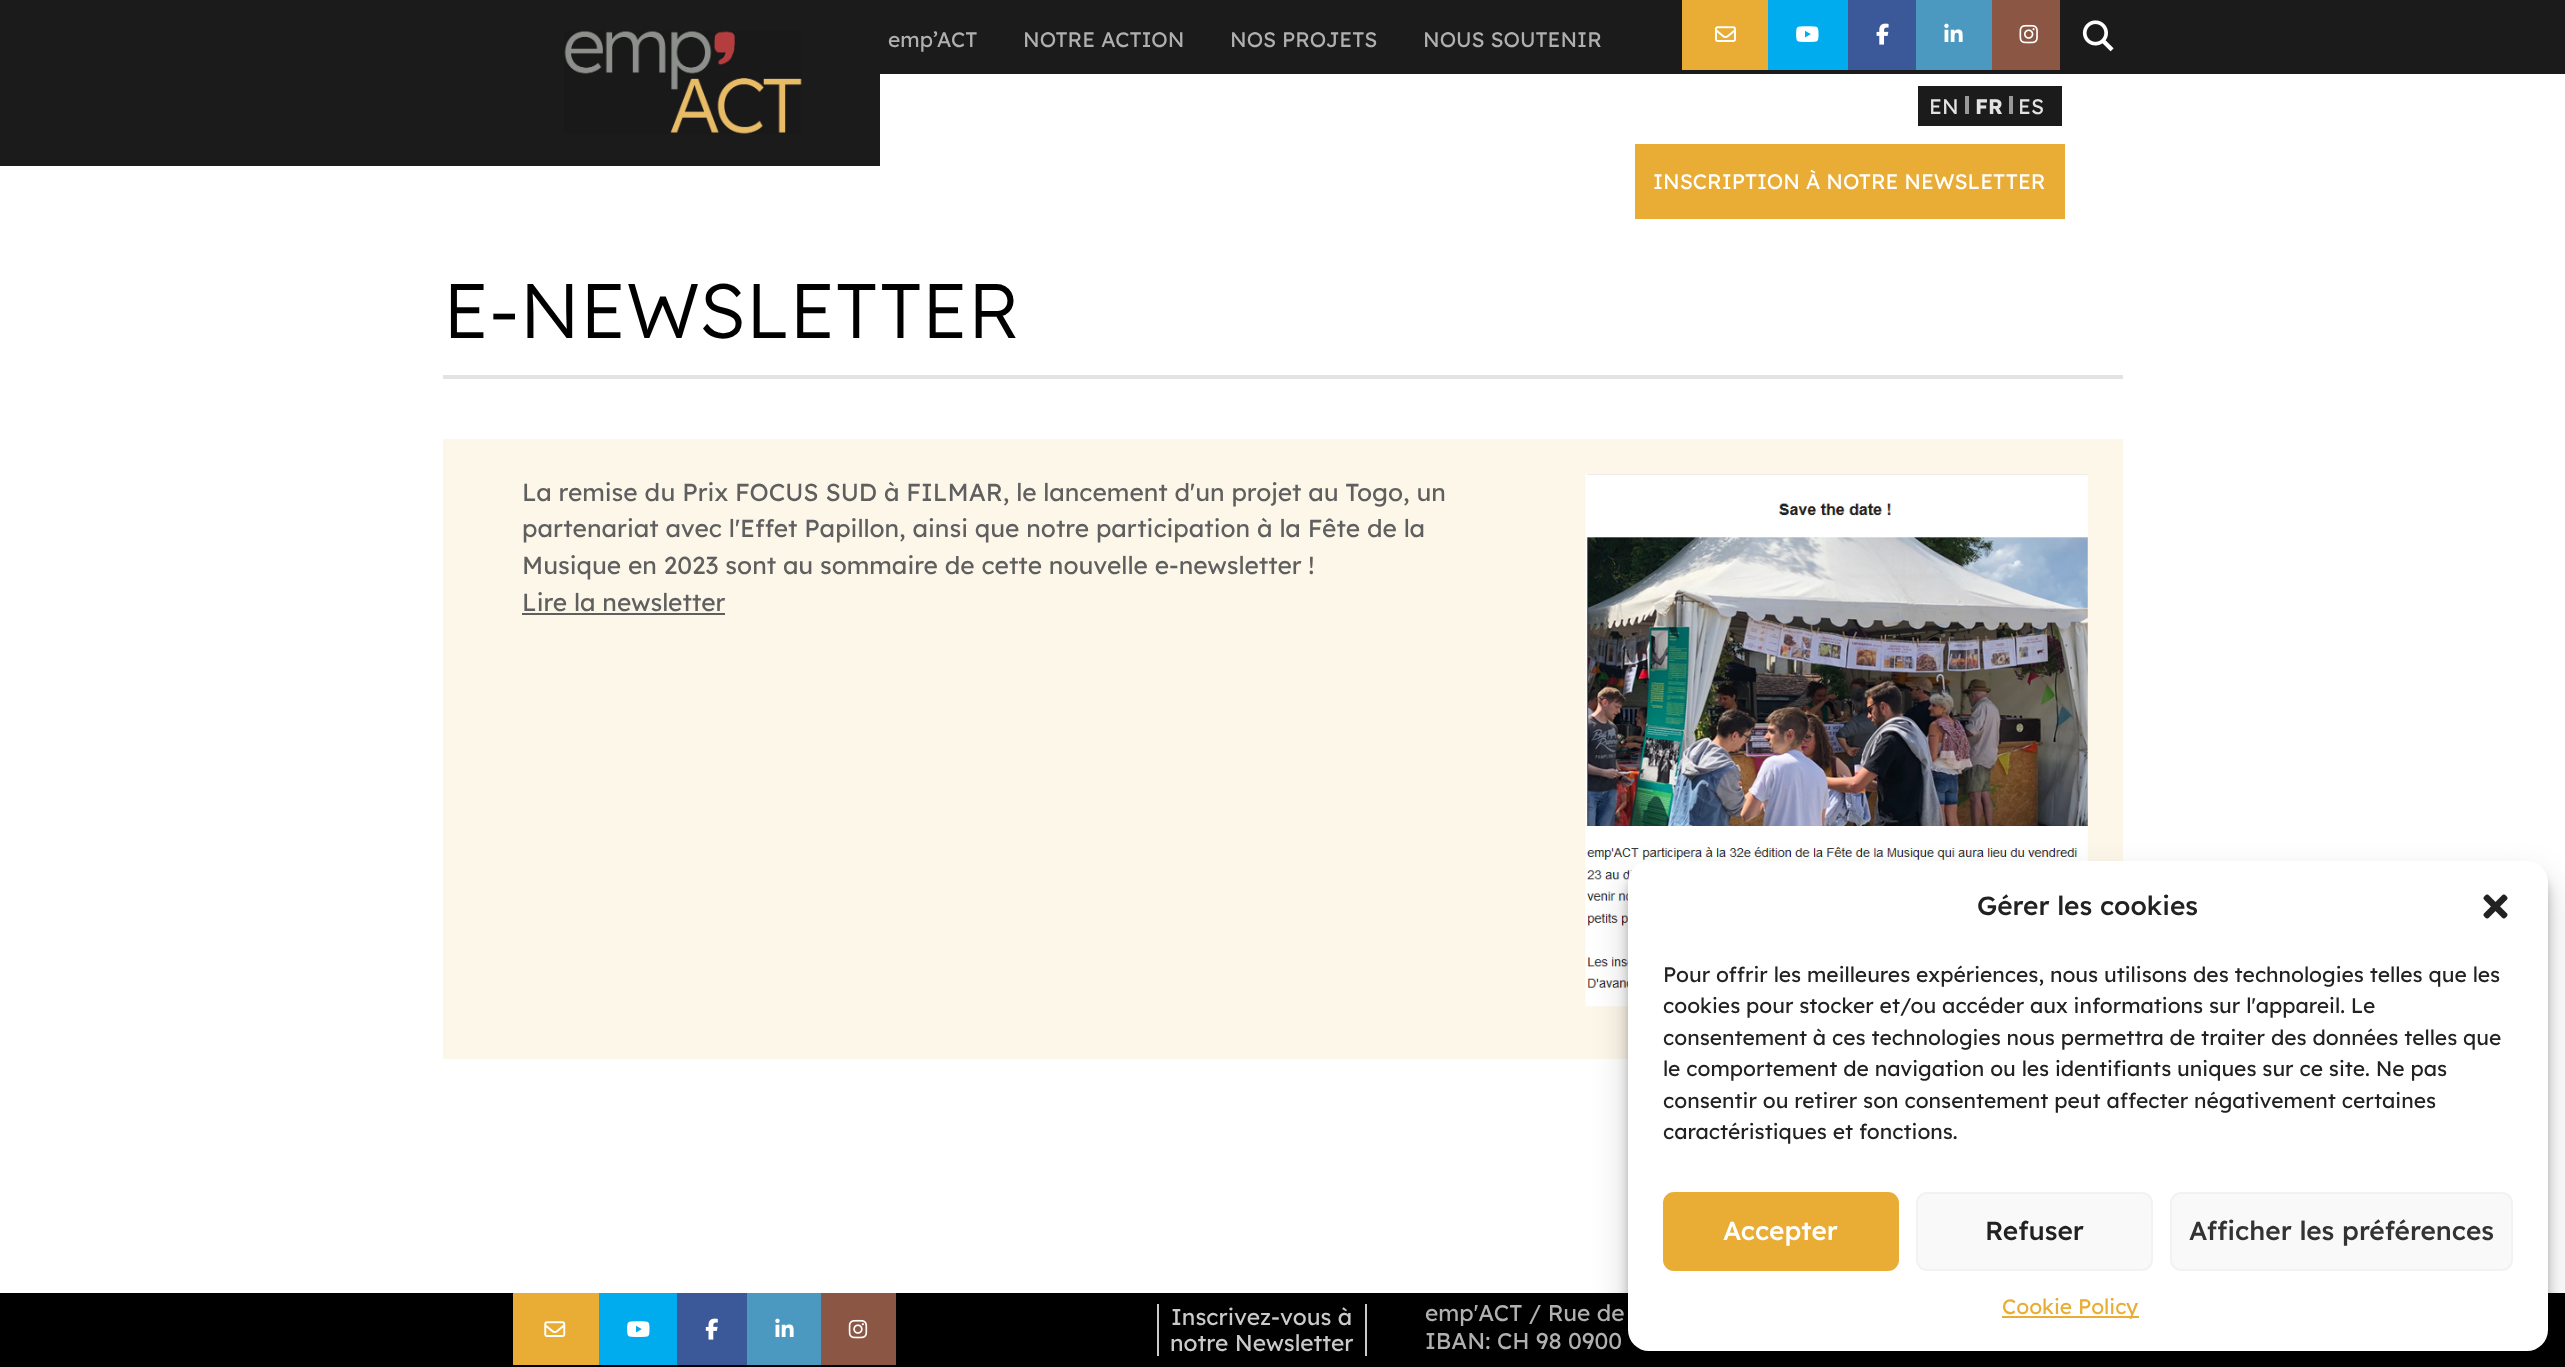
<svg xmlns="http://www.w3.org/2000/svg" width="2565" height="1367">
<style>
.a{font:21px Lexend;fill:#b0b0b0}
.b{font:21px Lexend;fill:#e3e3e3}
.c{font:bold 21px Lexend;fill:#e3e3e3}
.d{font:21px Lexend;fill:#fff}
.e{font:300 77px Lexend;fill:#000}
.f{font:24.5px Lexend;fill:#5f5f5f}
.g{font:500 26.25px Lexend;fill:#222}
.h{font:21px Lexend;fill:#222}
.i{font:500 26.25px Lexend;fill:#fff}
.j{font:500 26.25px Lexend;fill:#333}
.k{font:21px Lexend;fill:#e9ad36}
.l{font:22.75px Lexend;fill:#cacaca}
.m{font:22.75px Lexend;fill:#b0b0b0}
</style>
<rect width="100%" height="100%" fill="#fff"/>
<path fill="#1b1b1b" d="M0 0h2565v74H0z"/>
<path fill="#1b1b1b" d="M0 74h880v92H0z"/>
<image href="1.png" x="564" y="31" width="238" height="103"/>
<path fill="#e9ad36" d="M1682 0h86v70H1682z"/>
<image href="2.png" x="1715" y="26" width="21" height="16"/>
<path fill="#00acee" d="M1768 0h80v70H1768z"/>
<image href="3.png" x="1796" y="26" width="23" height="16"/>
<path fill="#3b5998" d="M1848 0h68v70H1848z"/>
<image href="4.png" x="1876" y="23" width="13" height="22"/>
<path fill="#4b99c1" d="M1916 0h76v70H1916z"/>
<image href="5.png" x="1944" y="23" width="19" height="19"/>
<path fill="#8b5643" d="M1992 0h68v70H1992z"/>
<image href="6.png" x="2019" y="24" width="19" height="20"/>
<image href="7.png" x="2082" y="20" width="32" height="32"/>
<path fill="#1b1b1b" d="M1918 86h144v40H1918z"/>
<path fill="#999" d="M1965 96h4v18H1965z"/>
<path fill="#999" d="M2009 96h4v18H2009z"/>
<path fill="#e9ad36" d="M1635 144h430v75H1635z"/>
<path fill="#e3e3e3" d="M443 375h1680v4H443z"/>
<path fill="#fdf7ea" d="M443 439h1680v620H443z"/>
<path fill="#5f5f5f" d="M522 613h203v2H522z"/>
<image href="8.png" x="1585" y="474" width="503" height="533"/>
<path fill="#000" d="M0 1293h2565v74H0z"/>
<rect fill="#0000003b" filter="blur(5px)" x="1628" y="872" width="920" height="490" rx="21"/>
<rect fill="#00000030" filter="blur(17.5px)" x="1628" y="879" width="920" height="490" rx="21"/>
<rect fill="#fff" x="1628" y="861" width="920" height="490" rx="21"/>
<image href="9.png" x="2483" y="894" width="25" height="25"/>
<rect fill="#e9ad36" stroke="#e9ad36" stroke-width="2" x="1664" y="1193" width="234" height="77" rx="10"/>
<rect fill="#f9f9f9" stroke="#f2f2f2" stroke-width="2" x="1917" y="1193" width="235" height="77" rx="10"/>
<rect fill="#f9f9f9" stroke="#f2f2f2" stroke-width="2" x="2171" y="1193" width="341" height="77" rx="10"/>
<path fill="#e9ad36" d="M2002 1316h137v2H2002z"/>
<path fill="#e9ad36" d="M513 1293h86v72H513z"/>
<image href="10.png" x="544" y="1321" width="22" height="16"/>
<path fill="#00acee" d="M599 1293h78v72H599z"/>
<image href="3.png" x="627" y="1321" width="23" height="16"/>
<path fill="#3b5998" d="M677 1293h70v72H677z"/>
<image href="11.png" x="705" y="1318" width="13" height="22"/>
<path fill="#4b99c1" d="M747 1293h74v72H747z"/>
<image href="5.png" x="775" y="1318" width="19" height="19"/>
<path fill="#8b5643" d="M821 1293h75v72H821z"/>
<image href="12.png" x="848" y="1319" width="20" height="20"/>
<path fill="#cacaca" d="M1365 1304h2v52H1365z"/>
<path fill="#cacaca" d="M1157 1304h2v52H1157z"/>
<text class="a" x="888" y="47">emp’ACT</text>
<text class="a" x="1023" y="47">NOTRE ACTION</text>
<text class="a" x="1230" y="47">NOS PROJETS</text>
<text class="a" x="1423" y="47">NOUS SOUTENIR</text>
<text class="b" x="1929" y="114">EN</text>
<text class="c" x="1975" y="114">FR</text>
<text class="b" x="2018" y="114">ES</text>
<text class="d" x="1653" y="189">INSCRIPTION À NOTRE NEWSLETTER</text>
<text class="e" x="443" y="338">E-NEWSLETTER</text>
<text class="f" x="522" y="501">La remise du Prix FOCUS SUD à FILMAR, le lancement d'un projet au Togo, un</text>
<text class="f" x="522" y="537">partenariat avec l'Effet Papillon, ainsi que notre participation à la Fête de la</text>
<text class="f" x="522" y="574">Musique en 2023 sont au sommaire de cette nouvelle e-newsletter !</text>
<text class="f" x="522" y="611">Lire la newsletter</text>
<text class="g" x="1977" y="915">Gérer les cookies</text>
<text class="h" x="1663" y="982">Pour offrir les meilleures expériences, nous utilisons des technologies telles que les</text>
<text class="h" x="1663" y="1013">cookies pour stocker et/ou accéder aux informations sur l'appareil. Le</text>
<text class="h" x="1663" y="1045">consentement à ces technologies nous permettra de traiter des données telles que</text>
<text class="h" x="1663" y="1076">le comportement de navigation ou les identifiants uniques sur ce site. Ne pas</text>
<text class="h" x="1663" y="1108">consentir ou retirer son consentement peut affecter négativement certaines</text>
<text class="h" x="1663" y="1139">caractéristiques et fonctions.</text>
<text class="i" x="1723" y="1240">Accepter</text>
<text class="g" x="1985" y="1240">Refuser</text>
<text class="j" x="2189" y="1240">Afficher les préférences</text>
<text class="k" x="2002" y="1314">Cookie Policy</text>
<text class="l" x="1171" y="1325">Inscrivez-vous à</text>
<text class="l" x="1170" y="1351">notre Newsletter</text>
<text class="m" x="1425" y="1321">emp'ACT / Rue de</text>
<text class="m" x="1425" y="1349">IBAN: CH 98 0900</text>
</svg>
